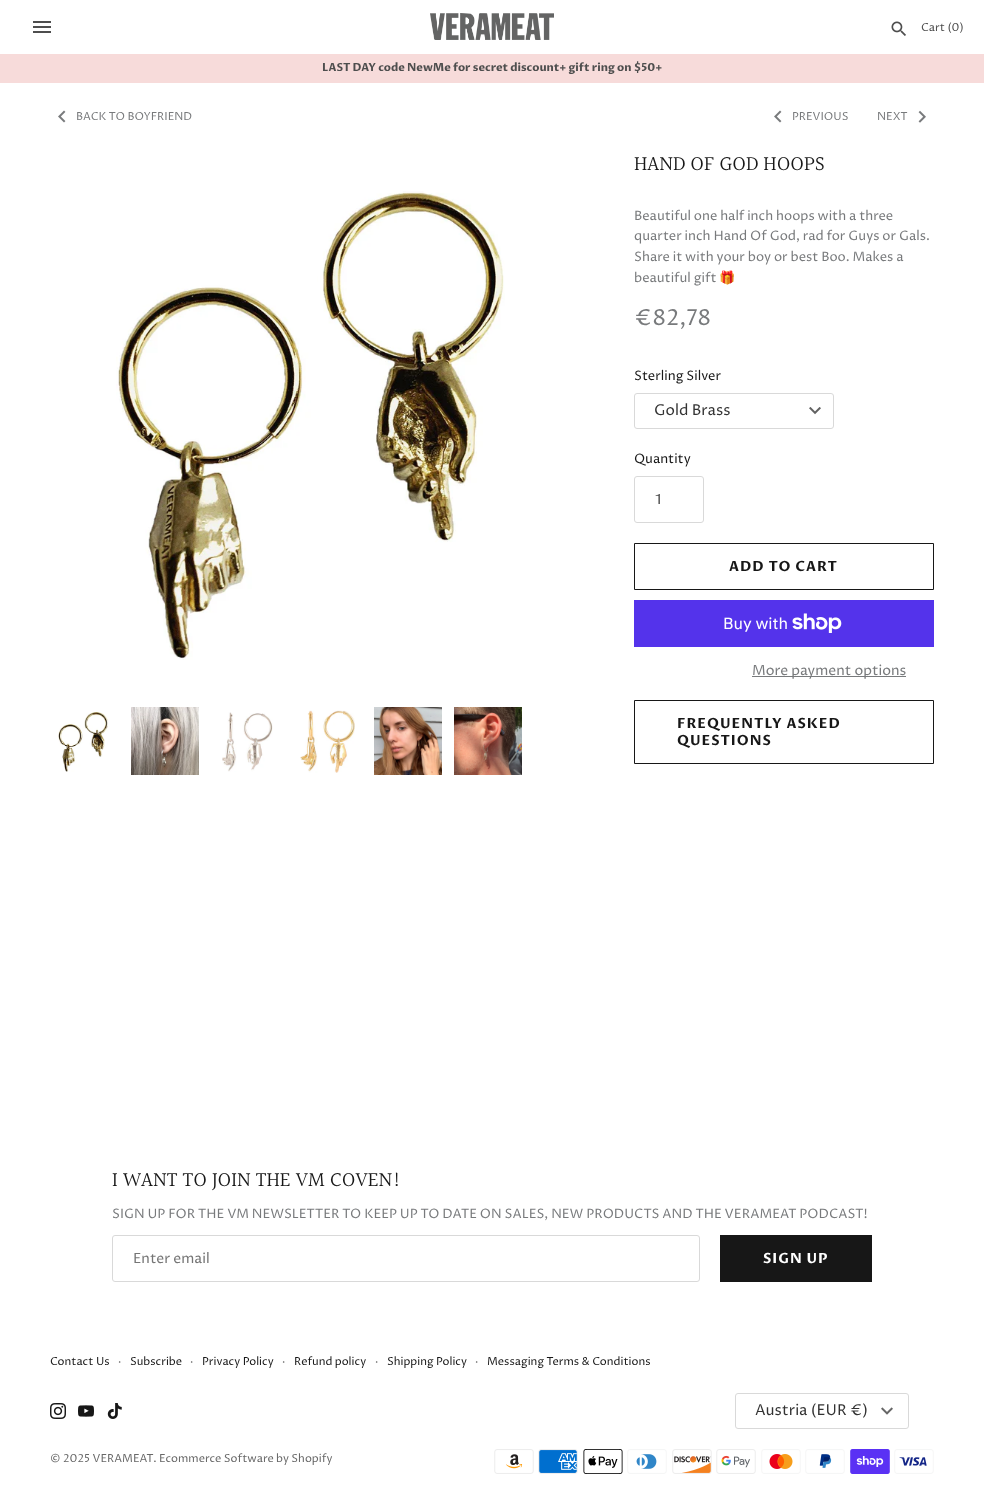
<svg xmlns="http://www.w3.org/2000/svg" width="984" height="1500">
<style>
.a{font:11.05px Proza Libre;fill:#4e4e4e}
.b{font:bold 11.05px Proza Libre;fill:#4e4e4e}
.c{font:11.05px Proza Libre;fill:#787a7c}
.d{font:20.75px Halant;fill:#171717}
.e{font:13px Proza Libre;fill:#787a7c}
.f{font:13px Noto Color Emoji;fill:#787a7c}
.g{font:22px Proza Libre;fill:#787a7c}
.h{font:13px Proza Libre;fill:#171717}
.i{font:15px Proza Libre;fill:#333}
.j{font:14px Proza Libre;fill:#444}
.k{font:bold 14px Proza Libre;letter-spacing:1px;fill:#171717}
.l{font:16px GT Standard;fill:#fff}
.m{font:14px Proza Libre;fill:#787a7c}
.n{font:14px Proza Libre;fill:#757575}
.o{font:bold 14px Proza Libre;letter-spacing:1px;fill:#fff}
.p{font:11.05px Proza Libre;fill:#171717}
.q{font:11.05px Proza Libre;fill:#686868}
</style>
<rect width="100%" height="100%" fill="#fff"/>
<image href="1.png" x="33" y="21" width="18" height="12"/>
<image href="2.png" x="430" y="13" width="124" height="27"/>
<image href="3.png" x="891" y="21" width="15" height="15"/>
<path fill="#f7dbda" d="M0 54h984v29H0z"/>
<image href="4.png" x="58" y="110" width="8" height="13"/>
<image href="4.png" x="774" y="110" width="8" height="13"/>
<image href="5.png" x="918" y="110" width="8" height="13"/>
<image href="6.png" x="116" y="191" width="389" height="469"/>
<image href="7.png" x="58" y="712" width="50" height="60"/>
<image href="8.png" x="131" y="707" width="68" height="68"/>
<image href="9.png" x="222" y="712" width="51" height="60"/>
<image href="10.png" x="300" y="710" width="55" height="63"/>
<image href="11.png" x="374" y="707" width="68" height="68"/>
<image href="12.png" x="454" y="707" width="68" height="68"/>
<image href="13.png" x="809" y="407" width="12" height="8"/>
<rect fill="none" stroke="#d9d9d9" x="634.5" y="393.5" width="199" height="35" rx="2.5"/>
<rect fill="none" stroke="#d9d9d9" x="634.5" y="476.5" width="69" height="46" rx="2.5"/>
<path fill="none" stroke="#171717" d="M634.5 543.5h299v46H634.5z"/>
<path fill="#5433eb" d="M634 600h300v47H634z"/>
<image href="14.png" x="792" y="613" width="50" height="20"/>
<path fill="#787a7c" d="M752 676h154v1H752z"/>
<path fill="none" stroke="#171717" d="M634.5 700.5h299v63H634.5z"/>
<rect fill="none" stroke="#d9d9d9" x="112.5" y="1235.5" width="587" height="46" rx="2.5"/>
<path fill="#171717" d="M720 1235h152v47H720z"/>
<image href="15.png" x="50" y="1403" width="16" height="16"/>
<image href="16.png" x="78" y="1405" width="16" height="12"/>
<image href="17.png" x="107" y="1403" width="15" height="16"/>
<rect fill="none" stroke="#d9d9d9" x="735.5" y="1393.5" width="173" height="35" rx="2.5"/>
<image href="18.png" x="881" y="1407" width="12" height="8"/>
<image href="19.png" x="494" y="1449" width="40" height="25"/>
<image href="20.png" x="538" y="1449" width="40" height="25"/>
<image href="21.png" x="583" y="1449" width="40" height="25"/>
<image href="22.png" x="627" y="1449" width="40" height="25"/>
<image href="23.png" x="672" y="1449" width="40" height="25"/>
<image href="24.png" x="716" y="1449" width="40" height="25"/>
<image href="25.png" x="761" y="1449" width="40" height="25"/>
<image href="26.png" x="805" y="1449" width="40" height="25"/>
<image href="27.png" x="850" y="1449" width="40" height="25"/>
<image href="28.png" x="894" y="1449" width="40" height="25"/>
<text class="a" x="921" y="31">Cart (0)</text>
<text class="b" x="322" y="71">LAST DAY code NewMe for secret discount+ gift ring on $50+</text>
<text class="c" x="76" y="120">BACK TO BOYFRIEND</text>
<text class="c" x="792" y="120">PREVIOUS</text>
<text class="c" x="877" y="120">NEXT</text>
<text class="d" x="634" y="171">HAND OF GOD HOOPS</text>
<text class="e" x="634" y="220">Beautiful one half inch hoops with a three</text>
<text class="e" x="634" y="240">quarter inch Hand Of God, rad for Guys or Gals.</text>
<text class="e" x="634" y="261">Share it with your boy or best Boo. Makes a</text>
<text class="e" x="634" y="282">beautiful gift</text>
<text class="f" x="719" y="282">🎁</text>
<text class="g" x="634" y="325">€82,78</text>
<text class="h" x="634" y="380">Sterling Silver</text>
<text class="i" x="654" y="415">Gold Brass</text>
<text class="h" x="634" y="463">Quantity</text>
<text class="j" x="655" y="504">1</text>
<text class="k" x="729" y="571">ADD TO CART</text>
<text class="l" x="723" y="629">Buy with</text>
<text class="m" x="752" y="675">More payment options</text>
<text class="k" x="677" y="728">FREQUENTLY ASKED</text>
<text class="k" x="677" y="745">QUESTIONS</text>
<text class="d" x="112" y="1187">I WANT TO JOIN THE VM COVEN!</text>
<text class="e" x="112" y="1218">SIGN UP FOR THE VM NEWSLETTER TO KEEP UP TO DATE ON SALES, NEW PRODUCTS AND THE VERAMEAT PODCAST!</text>
<text class="n" x="133" y="1263">Enter email</text>
<text class="o" x="763" y="1263">SIGN UP</text>
<text class="p" x="50" y="1365">Contact Us</text>
<text class="q" x="118" y="1365">·</text>
<text class="p" x="130" y="1365">Subscribe</text>
<text class="q" x="190" y="1365">·</text>
<text class="p" x="202" y="1365">Privacy Policy</text>
<text class="q" x="282" y="1365">·</text>
<text class="p" x="294" y="1365">Refund policy</text>
<text class="q" x="375" y="1365">·</text>
<text class="p" x="387" y="1365">Shipping Policy</text>
<text class="q" x="475" y="1365">·</text>
<text class="p" x="487" y="1365">Messaging Terms &amp; Conditions</text>
<text class="i" x="755" y="1415">Austria (EUR €)</text>
<text class="q" x="50" y="1462">© 2025 VERAMEAT.</text>
<text class="q" x="159" y="1462">Ecommerce Software by Shopify</text>
</svg>
